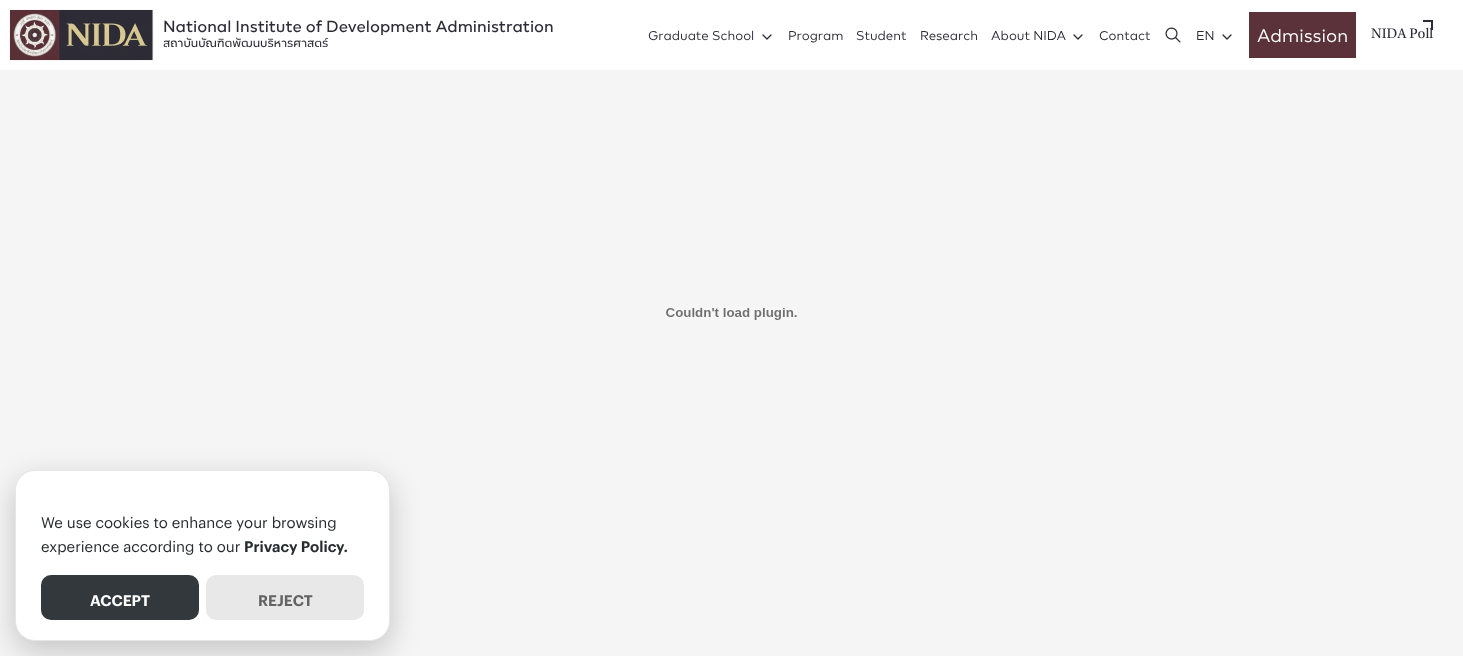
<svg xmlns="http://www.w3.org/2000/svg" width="1463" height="656">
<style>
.a{font:500 16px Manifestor;fill:#2d2c36}
.b{font:500 11.4px Manifestor;fill:#2d2c36}
.c{font:12.75px Manifestor;fill:#2d2c36}
.d{font:18px Manifestor;fill:#fff}
.e{font:14.5px Utopia;fill:#2d2c36}
.f{font:15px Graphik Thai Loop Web;fill:#272c2f}
.g{font:600 15px Graphik Thai Loop Web;fill:#272c2f}
.h{font:600 15px Graphik Thai Loop Web;fill:#fff}
.i{font:600 15px Graphik Thai Loop Web;fill:#636363}
</style>
<rect width="100%" height="100%" fill="#f5f5f6"/>
<path fill="#fff" d="M0 0h1463v70H0z"/>
<image href="1.png" x="9" y="9" width="145" height="52"/>
<path fill="none" stroke="#2d2c36" stroke-width="1.3" stroke-linecap="round" stroke-linejoin="round" d="M763 35l4 4l4-4"/>
<path fill="none" stroke="#2d2c36" stroke-width="1.3" stroke-linecap="round" stroke-linejoin="round" d="M1074 35l4 4l4-4"/>
<image href="2.png" x="1165" y="27" width="16" height="16"/>
<path fill="none" stroke="#2d2c36" stroke-width="1.3" stroke-linecap="round" stroke-linejoin="round" d="M1223 35l4 4l4-4"/>
<path fill="#5b3239" d="M1249 12h107v46H1249z"/>
<path fill="#2d2c36" d="M1423 20h10v2H1423z"/>
<path fill="#2d2c36" d="M1431 20h2v10H1431z"/>
<image href="3.png" x="666" y="308" width="131" height="12"/>
<rect fill="#02020233" filter="blur(15px)" x="15" y="480" width="375" height="171" rx="20"/>
<rect fill="#fff" stroke="#e6e6e6" x="15.5" y="470.5" width="374" height="170" rx="19.5"/>
<rect fill="#32383c" x="41" y="575" width="158" height="45" rx="10"/>
<rect fill="#e8e8e8" x="206" y="575" width="158" height="45" rx="10"/>
<text class="a" x="163" y="32">National Institute of Development Administration</text>
<text class="b" x="163" y="47">สถาบันบัณฑิตพัฒนบริหารศาสตร์</text>
<text class="c" x="648" y="40">Graduate School</text>
<text class="c" x="788" y="40">Program</text>
<text class="c" x="856" y="40">Student</text>
<text class="c" x="920" y="40">Research</text>
<text class="c" x="991" y="40">About NIDA</text>
<text class="c" x="1099" y="40">Contact</text>
<text class="c" x="1196" y="40">EN</text>
<text class="d" x="1257" y="42">Admission</text>
<text class="e" x="1371" y="38">NIDA Poll</text>
<text class="f" x="41" y="528">We use cookies to enhance your browsing</text>
<text class="f" x="41" y="552">experience according to our</text>
<text class="g" x="244" y="552">Privacy Policy.</text>
<text class="h" x="90" y="606">ACCEPT</text>
<text class="i" x="258" y="606">REJECT</text>
</svg>
